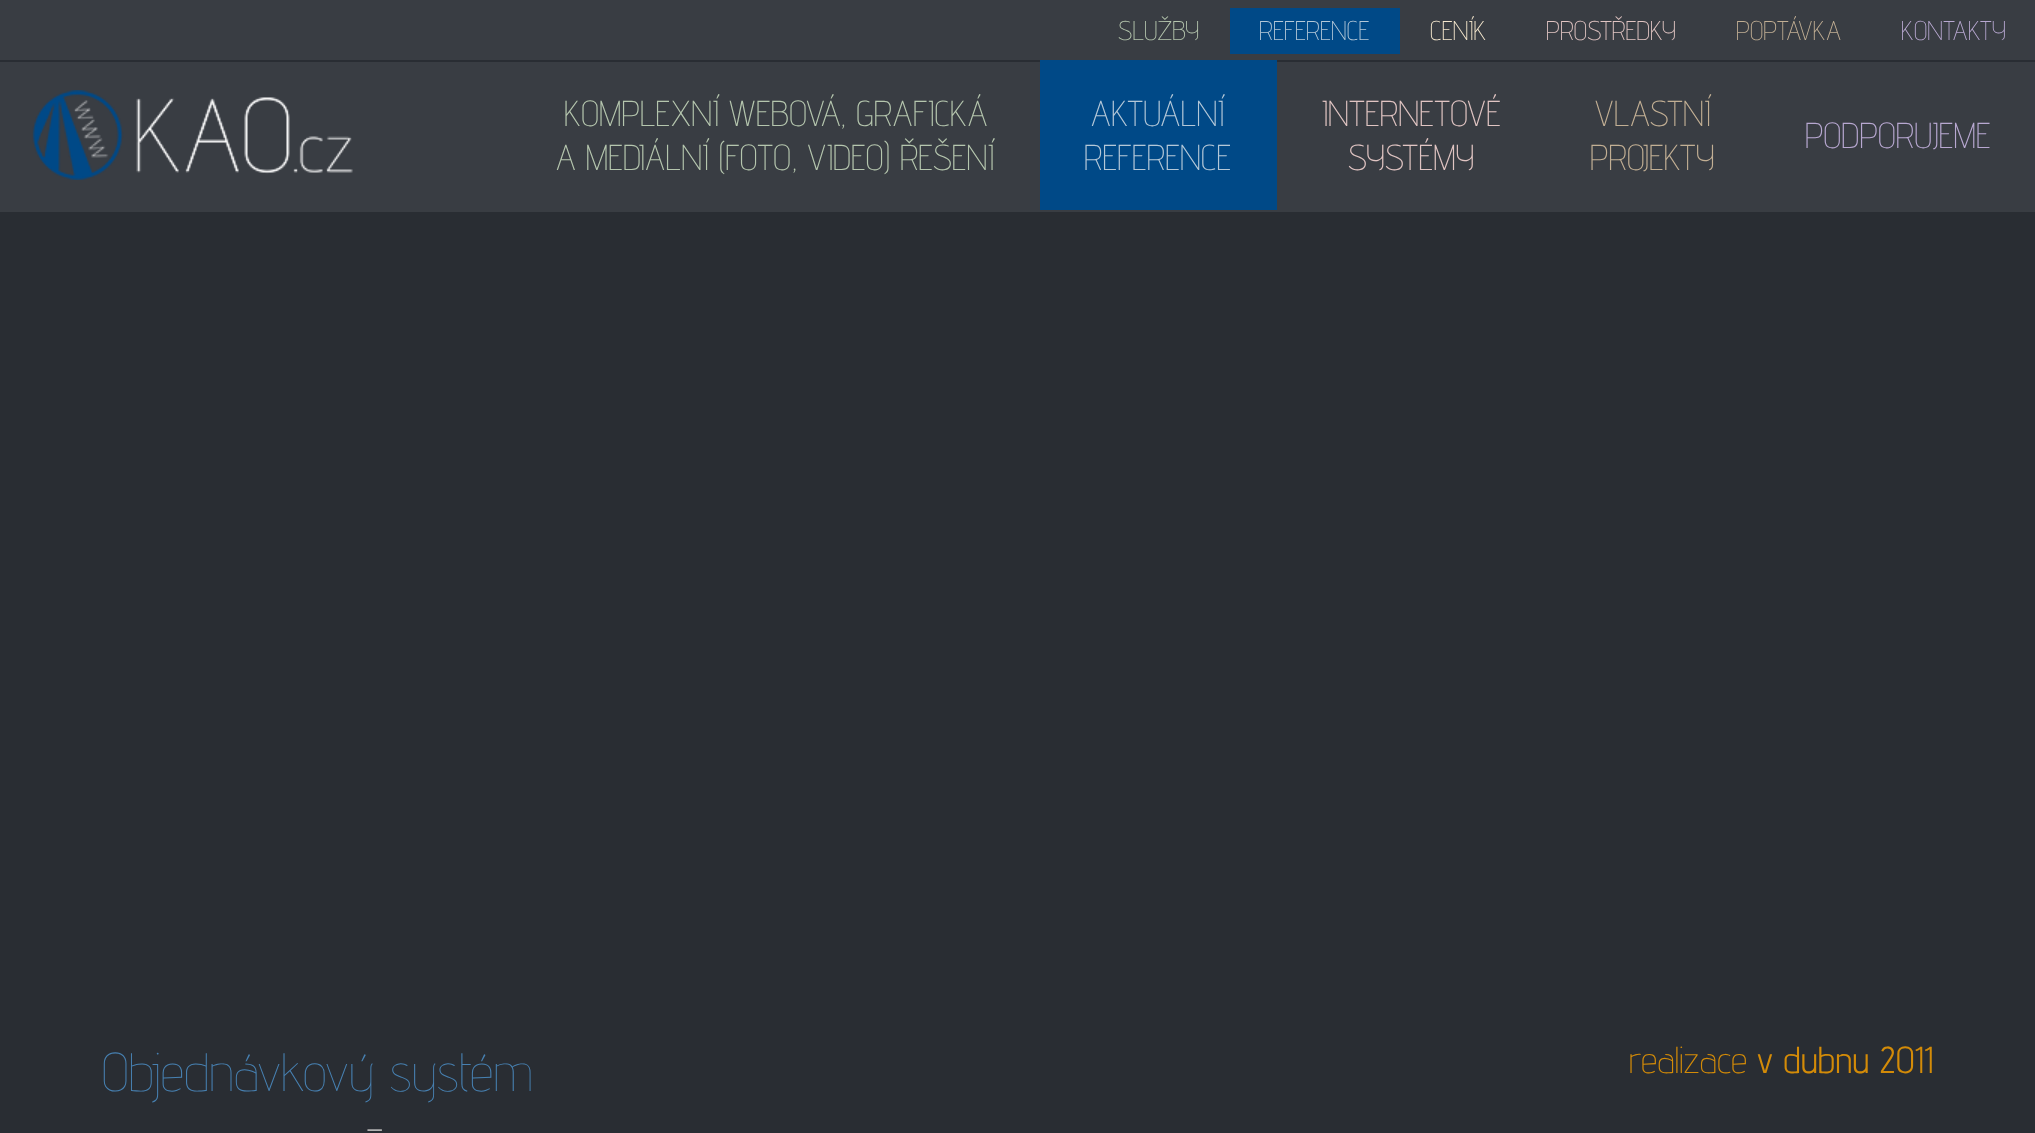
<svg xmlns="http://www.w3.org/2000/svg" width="2035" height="1133">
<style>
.a{font:200 27px Advent Pro;fill:#b5c6ae}
.b{font:200 27px Advent Pro;fill:#b4c8d8}
.c{font:200 27px Advent Pro;fill:#f6e8ce}
.d{font:200 27px Advent Pro;fill:#e1c5c3}
.e{font:200 27px Advent Pro;fill:#c2af94}
.f{font:200 27px Advent Pro;fill:#b8a8d1}
.g{font:200 36px Advent Pro;fill:#b5c6ae}
.h{font:200 36px Advent Pro;fill:#b4c8d8}
.i{font:200 36px Advent Pro;fill:#e1c5c3}
.j{font:200 36px Advent Pro;fill:#c2af94}
.k{font:200 36px Advent Pro;fill:#b8a8d1}
.l{font:100 54px Advent Pro;fill:#4780b1}
.m{font:200 45px Advent Pro;fill:#c6c6c5}
.n{font:200 37.5px Advent Pro;fill:#d38b08}
.o{font:37.5px Advent Pro;fill:#d38b08}
</style>
<rect width="100%" height="100%" fill="#292d33"/>
<path fill="#393d43" d="M0 0h2035v60H0z"/>
<path fill="#004987" d="M1230 8h170v46H1230z"/>
<path fill="#393d43" d="M0 62h2035v150H0z"/>
<path fill="#004987" d="M1040 60h237v150H1040z"/>
<image href="1.png" x="32" y="90" width="321" height="90"/>
<text class="a" x="1118" y="40">SLUŽBY</text>
<text class="b" x="1259" y="40">REFERENCE</text>
<text class="c" x="1430" y="40">CENÍK</text>
<text class="d" x="1546" y="40">PROSTŘEDKY</text>
<text class="e" x="1736" y="40">POPTÁVKA</text>
<text class="f" x="1901" y="40">KONTAKTY</text>
<text class="g" x="564" y="126">KOMPLEXNÍ WEBOVÁ, GRAFICKÁ</text>
<text class="g" x="556" y="170">A MEDIÁLNÍ (FOTO, VIDEO) ŘEŠENÍ</text>
<text class="h" x="1091" y="126">AKTUÁLNÍ</text>
<text class="h" x="1084" y="170">REFERENCE</text>
<text class="i" x="1322" y="126">INTERNETOVÉ</text>
<text class="i" x="1348" y="170">SYSTÉMY</text>
<text class="j" x="1595" y="126">VLASTNÍ</text>
<text class="j" x="1590" y="170">PROJEKTY</text>
<text class="k" x="1805" y="148">PODPORUJEME</text>
<text class="l" x="102" y="1091">Objednávkový systém</text>
<text class="m" x="366" y="1148">-</text>
<text class="n" x="1629" y="1073">realizace</text>
<text class="o" x="1757" y="1073">v dubnu 2011</text>
</svg>
